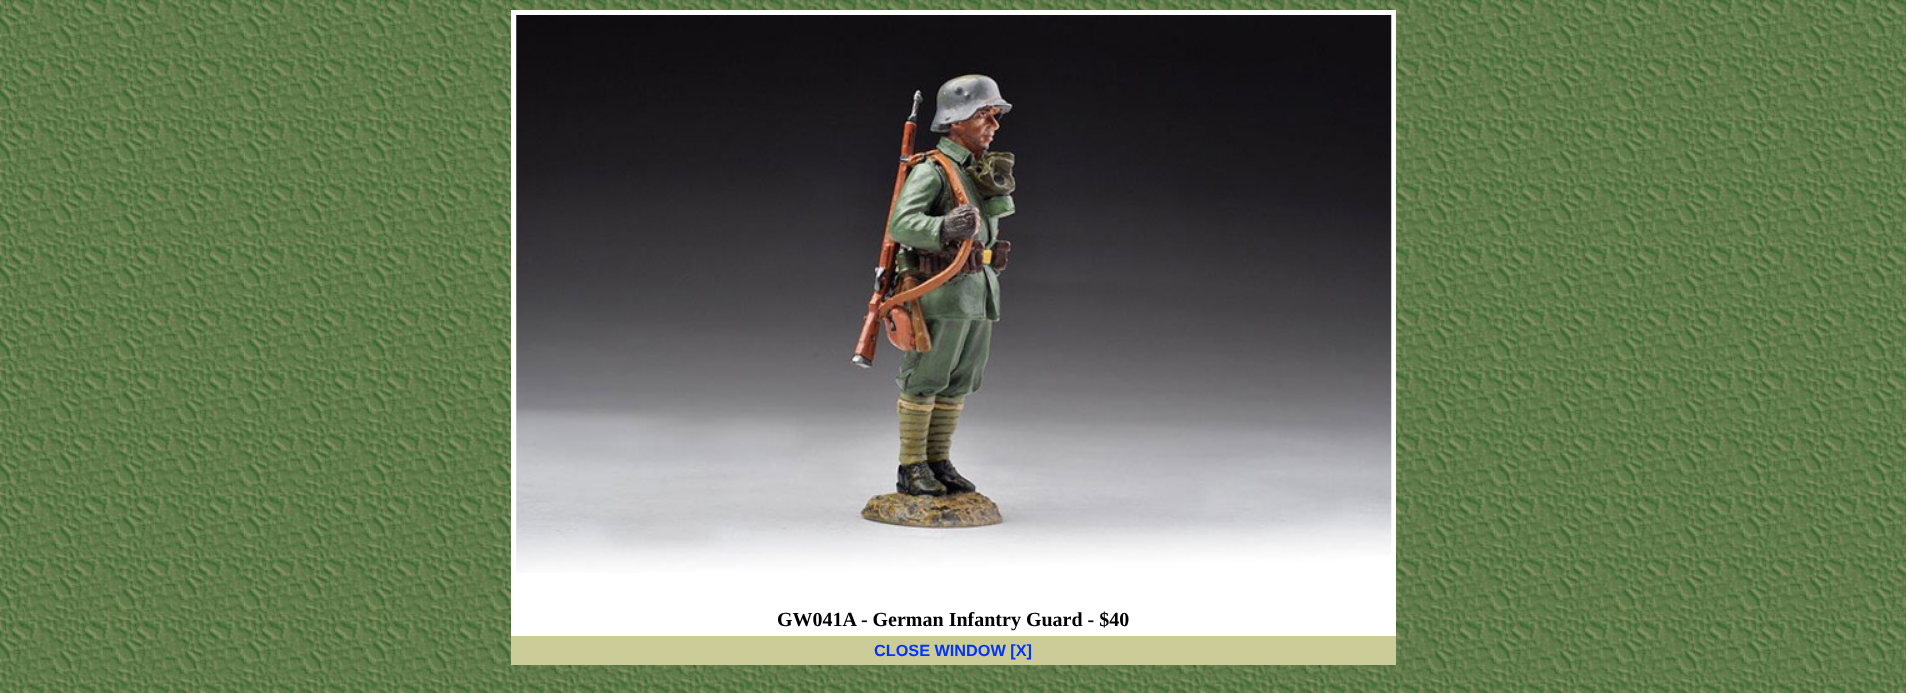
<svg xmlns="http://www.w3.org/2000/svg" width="1906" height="693">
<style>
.a{font:bold 20px Liberation Serif;fill:#000}
.b{font:bold 16.25px Liberation Sans;fill:#03f}
</style>
<rect width="100%" height="100%" fill="#fff"/>
<image href="1.png" x="0" y="0" width="1906" height="693"/>
<path fill="#cc9" d="M511 636h885v29H511z"/>
<path fill="#fff" d="M511 10h885v626H511z"/>
<image href="2.png" x="516" y="15" width="876" height="558"/>
<text class="a" x="777" y="626">GW041A - German Infantry Guard - $40</text>
<text class="b" x="874" y="656">CLOSE WINDOW [X]</text>
</svg>
